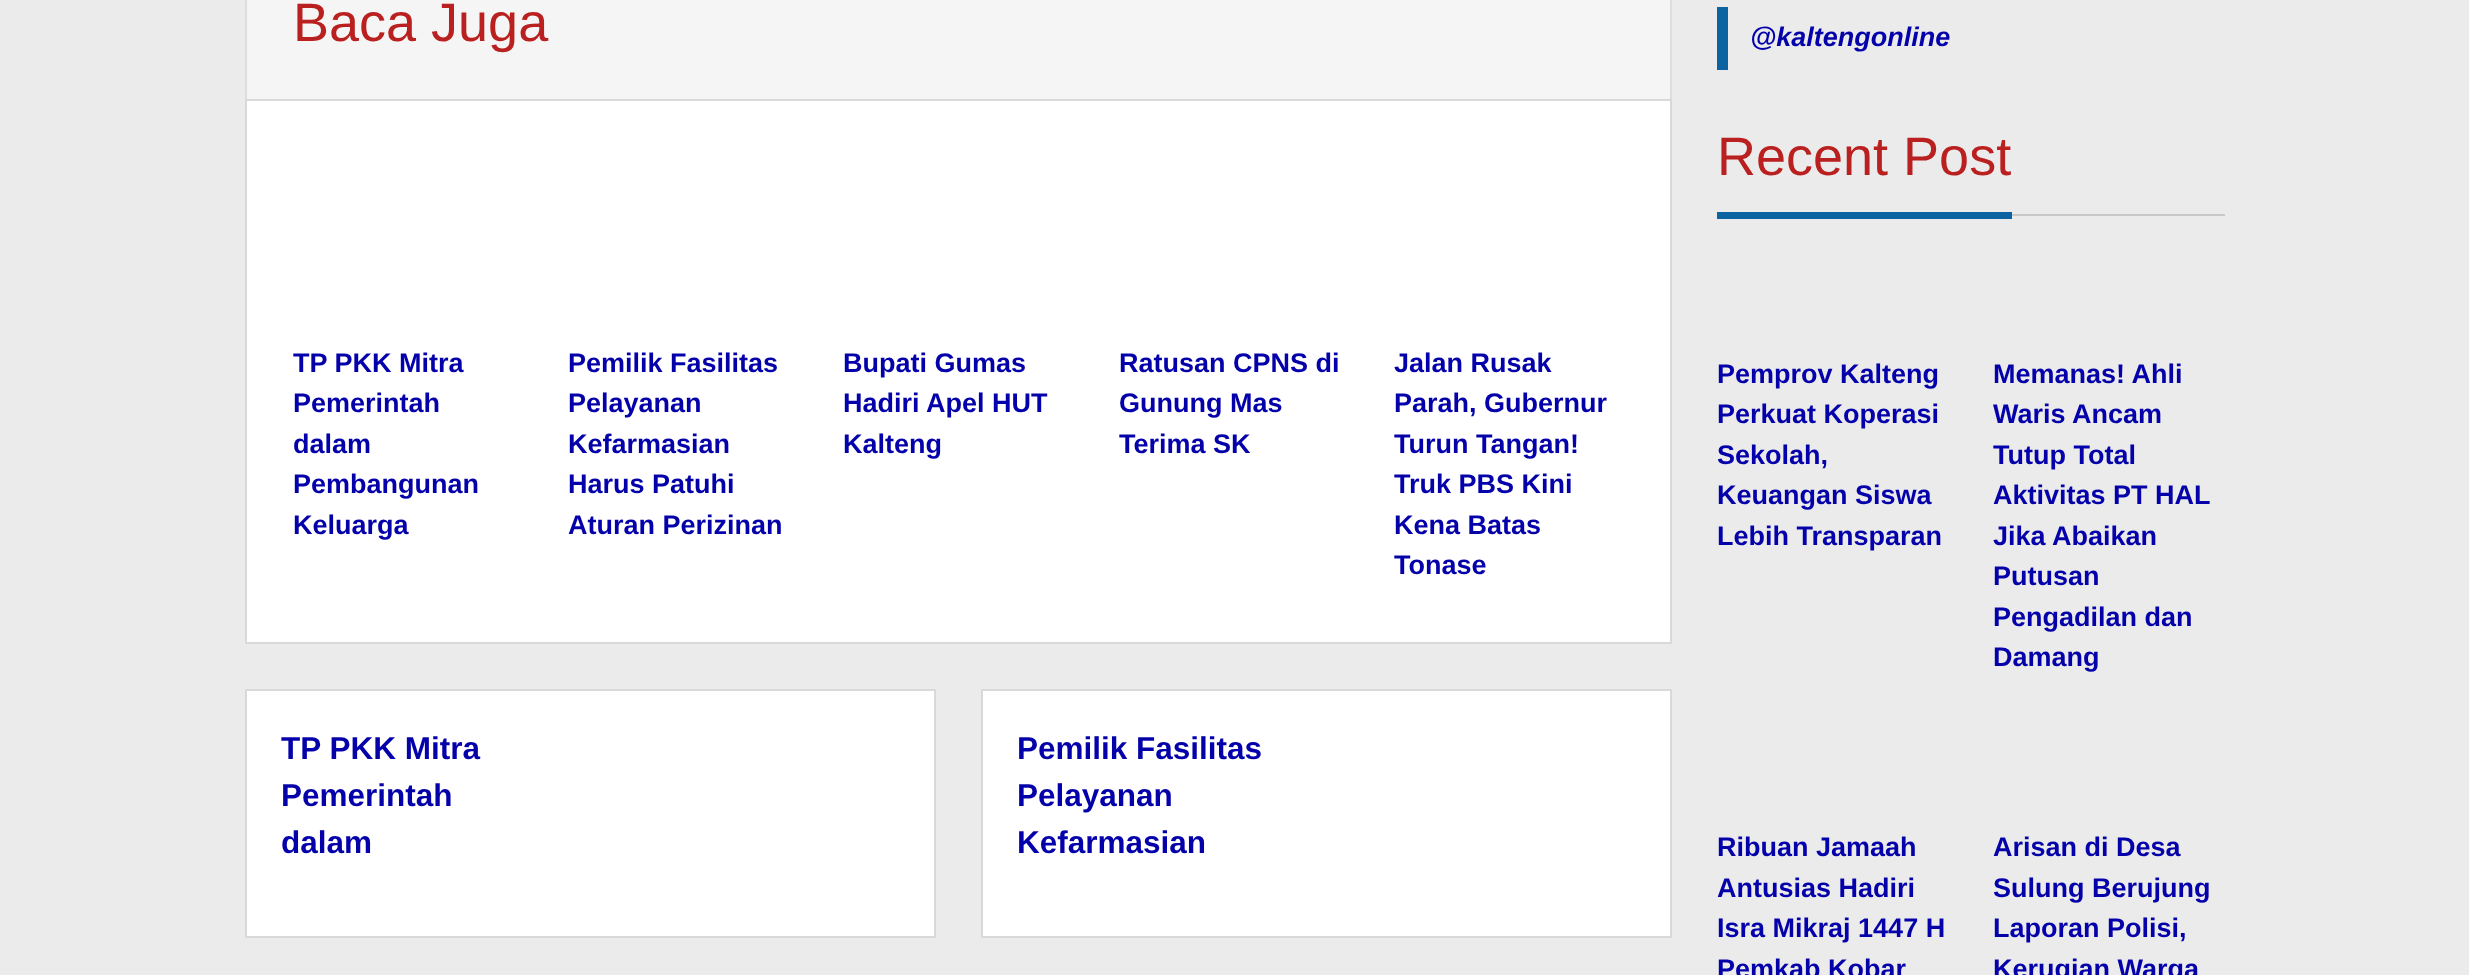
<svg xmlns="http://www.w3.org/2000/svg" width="2469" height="975">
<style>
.a{font:54px Liberation Sans;fill:#b9201f}
.b{font:bold 27px Liberation Sans;fill:#0401aa}
.c{font:bold 31.5px Liberation Sans;fill:#0401aa}
.d{font:italic bold 27px Liberation Sans;fill:#0401aa}
</style>
<rect width="100%" height="100%" fill="#ebebeb"/>
<path fill="#f5f5f5" stroke="#ddd" stroke-width="2" d="M246 -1h1425v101H246z"/>
<path fill="#fff" stroke="#d9d9d9" stroke-width="2" d="M246 100h1425v543H246z"/>
<path fill="#fff" stroke="#d9d9d9" stroke-width="2" d="M246 690h689v247H246z"/>
<path fill="#fff" stroke="#d9d9d9" stroke-width="2" d="M982 690h689v247H982z"/>
<path fill="#0b63a1" d="M1717 7h11v63H1717z"/>
<path fill="#c8c8c8" d="M2012 214h213v2H2012z"/>
<path fill="#0b63a1" d="M1717 212h295v7H1717z"/>
<text class="a" x="293" y="41">Baca Juga</text>
<text class="b" x="293" y="372">TP PKK Mitra</text>
<text class="b" x="293" y="412">Pemerintah</text>
<text class="b" x="293" y="453">dalam</text>
<text class="b" x="293" y="493">Pembangunan</text>
<text class="b" x="293" y="534">Keluarga</text>
<text class="b" x="568" y="372">Pemilik Fasilitas</text>
<text class="b" x="568" y="412">Pelayanan</text>
<text class="b" x="568" y="453">Kefarmasian</text>
<text class="b" x="568" y="493">Harus Patuhi</text>
<text class="b" x="568" y="534">Aturan Perizinan</text>
<text class="b" x="843" y="372">Bupati Gumas</text>
<text class="b" x="843" y="412">Hadiri Apel HUT</text>
<text class="b" x="843" y="453">Kalteng</text>
<text class="b" x="1119" y="372">Ratusan CPNS di</text>
<text class="b" x="1119" y="412">Gunung Mas</text>
<text class="b" x="1119" y="453">Terima SK</text>
<text class="b" x="1394" y="372">Jalan Rusak</text>
<text class="b" x="1394" y="412">Parah, Gubernur</text>
<text class="b" x="1394" y="453">Turun Tangan!</text>
<text class="b" x="1394" y="493">Truk PBS Kini</text>
<text class="b" x="1394" y="534">Kena Batas</text>
<text class="b" x="1394" y="574">Tonase</text>
<text class="c" x="281" y="759">TP PKK Mitra</text>
<text class="c" x="281" y="806">Pemerintah</text>
<text class="c" x="281" y="853">dalam</text>
<text class="c" x="1017" y="759">Pemilik Fasilitas</text>
<text class="c" x="1017" y="806">Pelayanan</text>
<text class="c" x="1017" y="853">Kefarmasian</text>
<text class="d" x="1750" y="46">@kaltengonline</text>
<text class="a" x="1717" y="175">Recent Post</text>
<text class="b" x="1717" y="383">Pemprov Kalteng</text>
<text class="b" x="1717" y="423">Perkuat Koperasi</text>
<text class="b" x="1717" y="464">Sekolah,</text>
<text class="b" x="1717" y="504">Keuangan Siswa</text>
<text class="b" x="1717" y="545">Lebih Transparan</text>
<text class="b" x="1993" y="383">Memanas! Ahli</text>
<text class="b" x="1993" y="423">Waris Ancam</text>
<text class="b" x="1993" y="464">Tutup Total</text>
<text class="b" x="1993" y="504">Aktivitas PT HAL</text>
<text class="b" x="1993" y="545">Jika Abaikan</text>
<text class="b" x="1993" y="585">Putusan</text>
<text class="b" x="1993" y="626">Pengadilan dan</text>
<text class="b" x="1993" y="666">Damang</text>
<text class="b" x="1717" y="856">Ribuan Jamaah</text>
<text class="b" x="1717" y="897">Antusias Hadiri</text>
<text class="b" x="1717" y="937">Isra Mikraj 1447 H</text>
<text class="b" x="1717" y="978">Pemkab Kobar</text>
<text class="b" x="1993" y="856">Arisan di Desa</text>
<text class="b" x="1993" y="897">Sulung Berujung</text>
<text class="b" x="1993" y="937">Laporan Polisi,</text>
<text class="b" x="1993" y="978">Kerugian Warga</text>
</svg>
